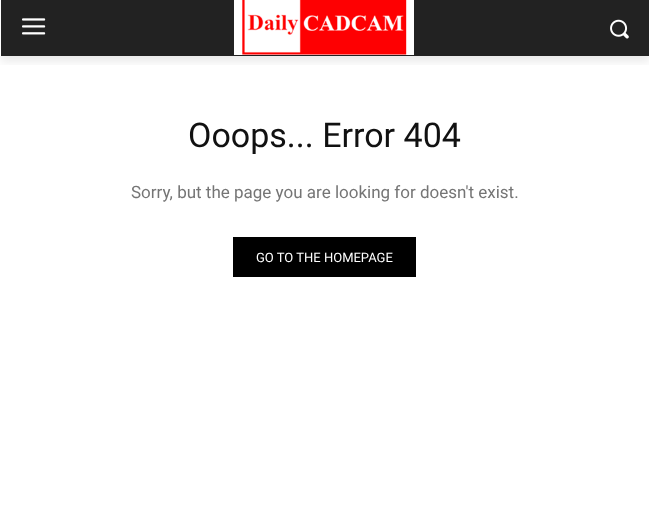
<svg xmlns="http://www.w3.org/2000/svg" width="649" height="512">
<style>
.a{font:34px Roboto;fill:#111}
.b{font:17px Roboto;fill:#757575}
.c{font:13px Roboto;fill:#fff}
</style>
<defs>
<clipPath id="clip1"><path d="M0 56h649v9H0z"/></clipPath>
</defs>
<rect width="100%" height="100%" fill="#fff"/>
<path fill="#222" d="M1 0h648v56H1z"/>
<image href="1.png" x="22" y="18" width="24" height="17"/>
<image href="2.png" x="234" y="0" width="180" height="55"/>
<image href="3.png" x="610" y="19" width="19" height="20"/>
<g clip-path="url(#clip1)">
<path fill="#00000014" filter="blur(4px)" d="M1 6h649v56H1z"/>
</g>
<path fill="#000" d="M233 237h183v40H233z"/>
<text class="a" x="188" y="147">Ooops... Error 404</text>
<text class="b" x="131" y="198">Sorry, but the page you are looking for doesn't exist.</text>
<text class="c" x="256" y="262">GO TO THE HOMEPAGE</text>
</svg>
